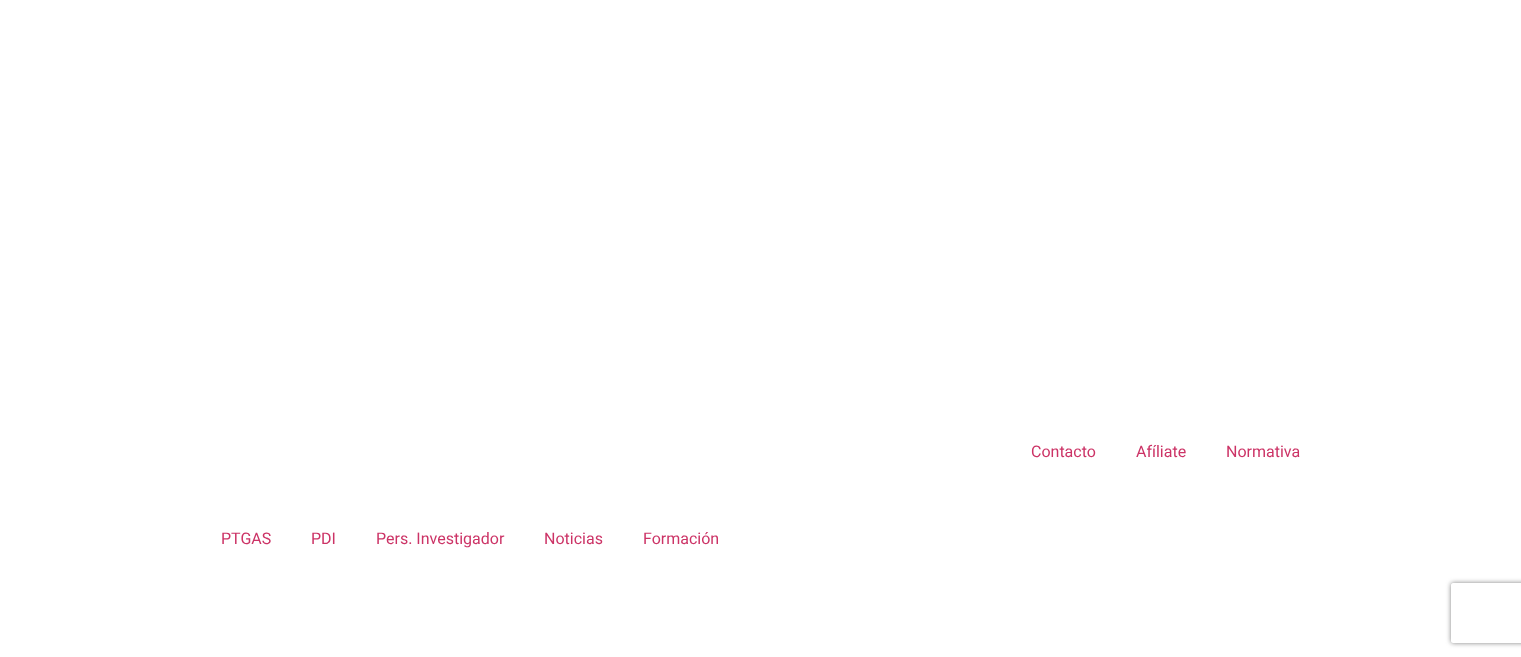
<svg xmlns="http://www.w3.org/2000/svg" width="1521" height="657">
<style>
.a{font:16px Roboto;fill:#c36}
</style>
<defs>
<clipPath id="clip1"><path d="M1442 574h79v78h-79zm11 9h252c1 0 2 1 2 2v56c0 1-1 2-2 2h-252c-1 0-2-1-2-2v-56c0-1 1-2 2-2z" clip-rule="evenodd"/></clipPath>
</defs>
<rect width="100%" height="100%" fill="#fff"/>
<g clip-path="url(#clip1)">
<rect fill="#808080" filter="blur(2.5px)" x="1451" y="583" width="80" height="60" rx="2"/>
</g>
<text class="a" x="1031" y="457">Contacto</text>
<text class="a" x="1136" y="457">Afíliate</text>
<text class="a" x="1226" y="457">Normativa</text>
<text class="a" x="221" y="544">PTGAS</text>
<text class="a" x="311" y="544">PDI</text>
<text class="a" x="376" y="544">Pers. Investigador</text>
<text class="a" x="544" y="544">Noticias</text>
<text class="a" x="643" y="544">Formación</text>
</svg>
